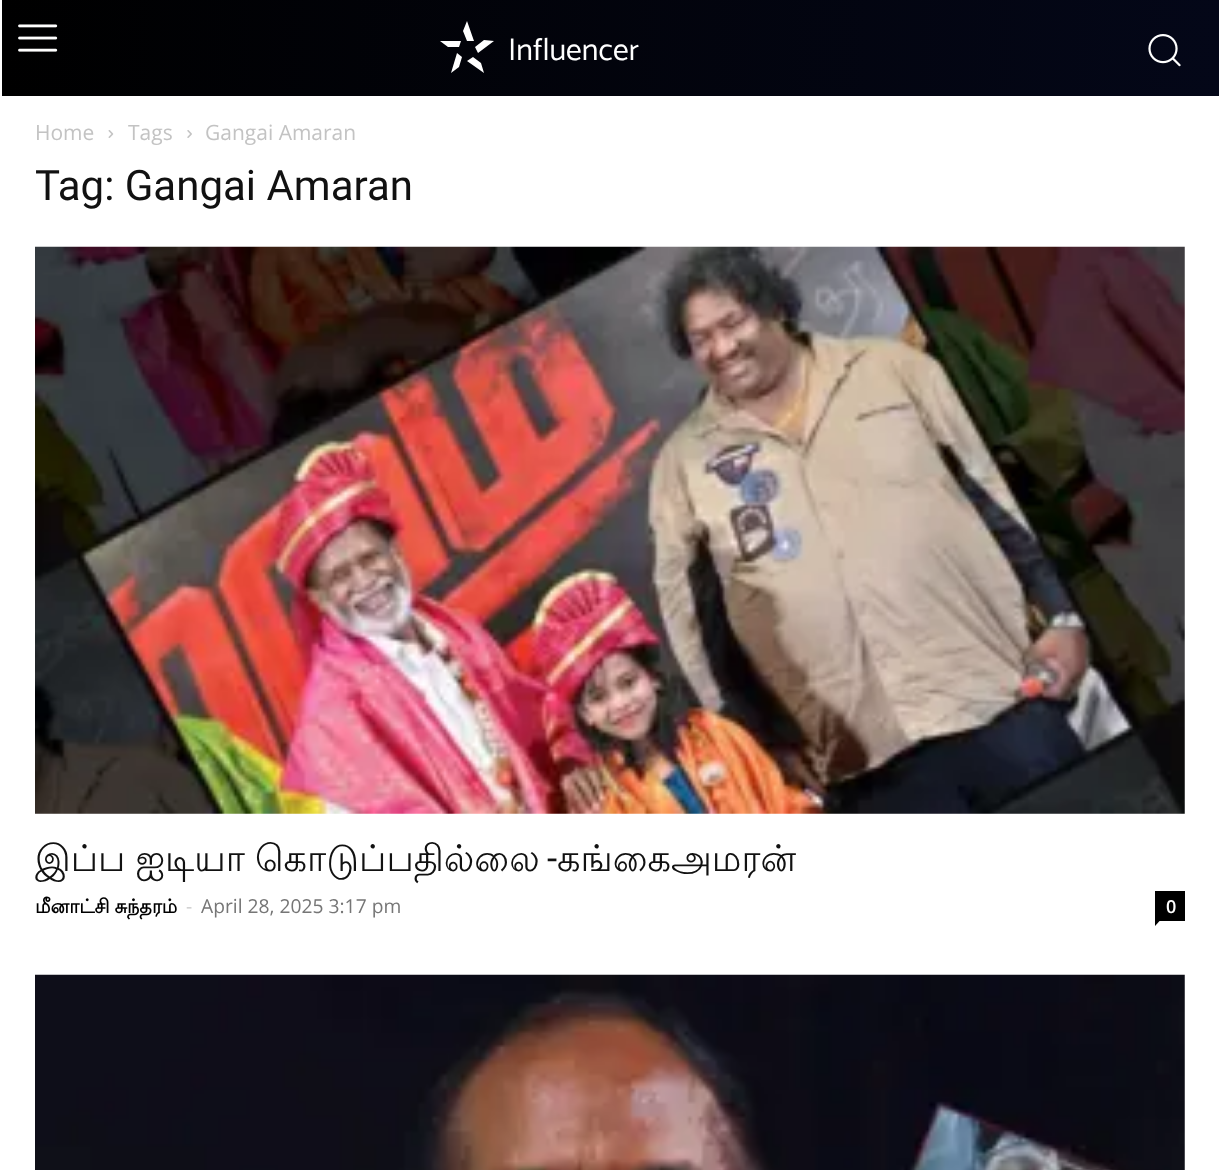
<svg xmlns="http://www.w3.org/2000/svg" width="1219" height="1170">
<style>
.a{font:31.5px Catamaran;fill:#fff}
.b{font:21px Open Sans;fill:#c3c3c3}
.c{font:42px Roboto;fill:#111}
.d{font:36.75px Lohit Tamil;fill:#111}
.e{font:36.75px Roboto;fill:#111}
.f{font:bold 19.25px Lohit Tamil;fill:#000}
.g{font:19.25px Open Sans;fill:#ccc}
.h{font:19.25px Open Sans;fill:#767676}
.i{font:600 18px Open Sans;fill:#fff}
</style>
<defs>
<linearGradient id="g1" gradientUnits="userSpaceOnUse" x1="0.9" y1="48" x2="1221" y2="48"><stop offset="0" stop-color="#000"/><stop offset="1" stop-color="#040718"/></linearGradient>
</defs>
<rect width="100%" height="100%" fill="#fff"/>
<path fill="url(#g1)" d="M2 0h1217v96H2z"/>
<image href="1.png" x="18" y="24" width="40" height="28"/>
<path fill="#fff" d="M440 41l8 6h11l2-6zm11 32l8-6l3-10l-5-4zm22-16l-6 4l17 12l-3-10zm21-16l-10-1l-9 7l3 6zm-27-20l-4 10l4 10h7z"/>
<image href="2.png" x="1148" y="34" width="33" height="33"/>
<image href="3.png" x="108" y="130" width="6" height="8"/>
<image href="4.png" x="187" y="130" width="5" height="8"/>
<image href="5.png" x="35" y="246" width="1150" height="568"/>
<path fill="#000" d="M1155 891h30v30H1155z"/>
<path fill="#000" d="M1155 920.5h5l-5 5.5z"/>
<image href="6.png" x="35" y="974" width="1150" height="196"/>
<text class="a" x="508" y="60">Influencer</text>
<text class="b" x="35" y="140">Home</text>
<text class="b" x="128" y="140">Tags</text>
<text class="b" x="205" y="140">Gangai Amaran</text>
<text class="c" x="35" y="200">Tag: Gangai Amaran</text>
<text class="d" x="35" y="871" word-spacing="-1">இப்ப ஐடியா கொடுப்பதில்லை</text>
<text class="e" x="547" y="871">-</text>
<text class="d" x="557" y="871">கங்கைஅமரன்</text>
<text class="f" x="35" y="913" word-spacing="-1">மீனாட்சி சுந்தரம்</text>
<text class="g" x="186" y="913">-</text>
<text class="h" x="201" y="913">April 28, 2025 3:17 pm</text>
<text class="i" x="1166" y="913">0</text>
</svg>
